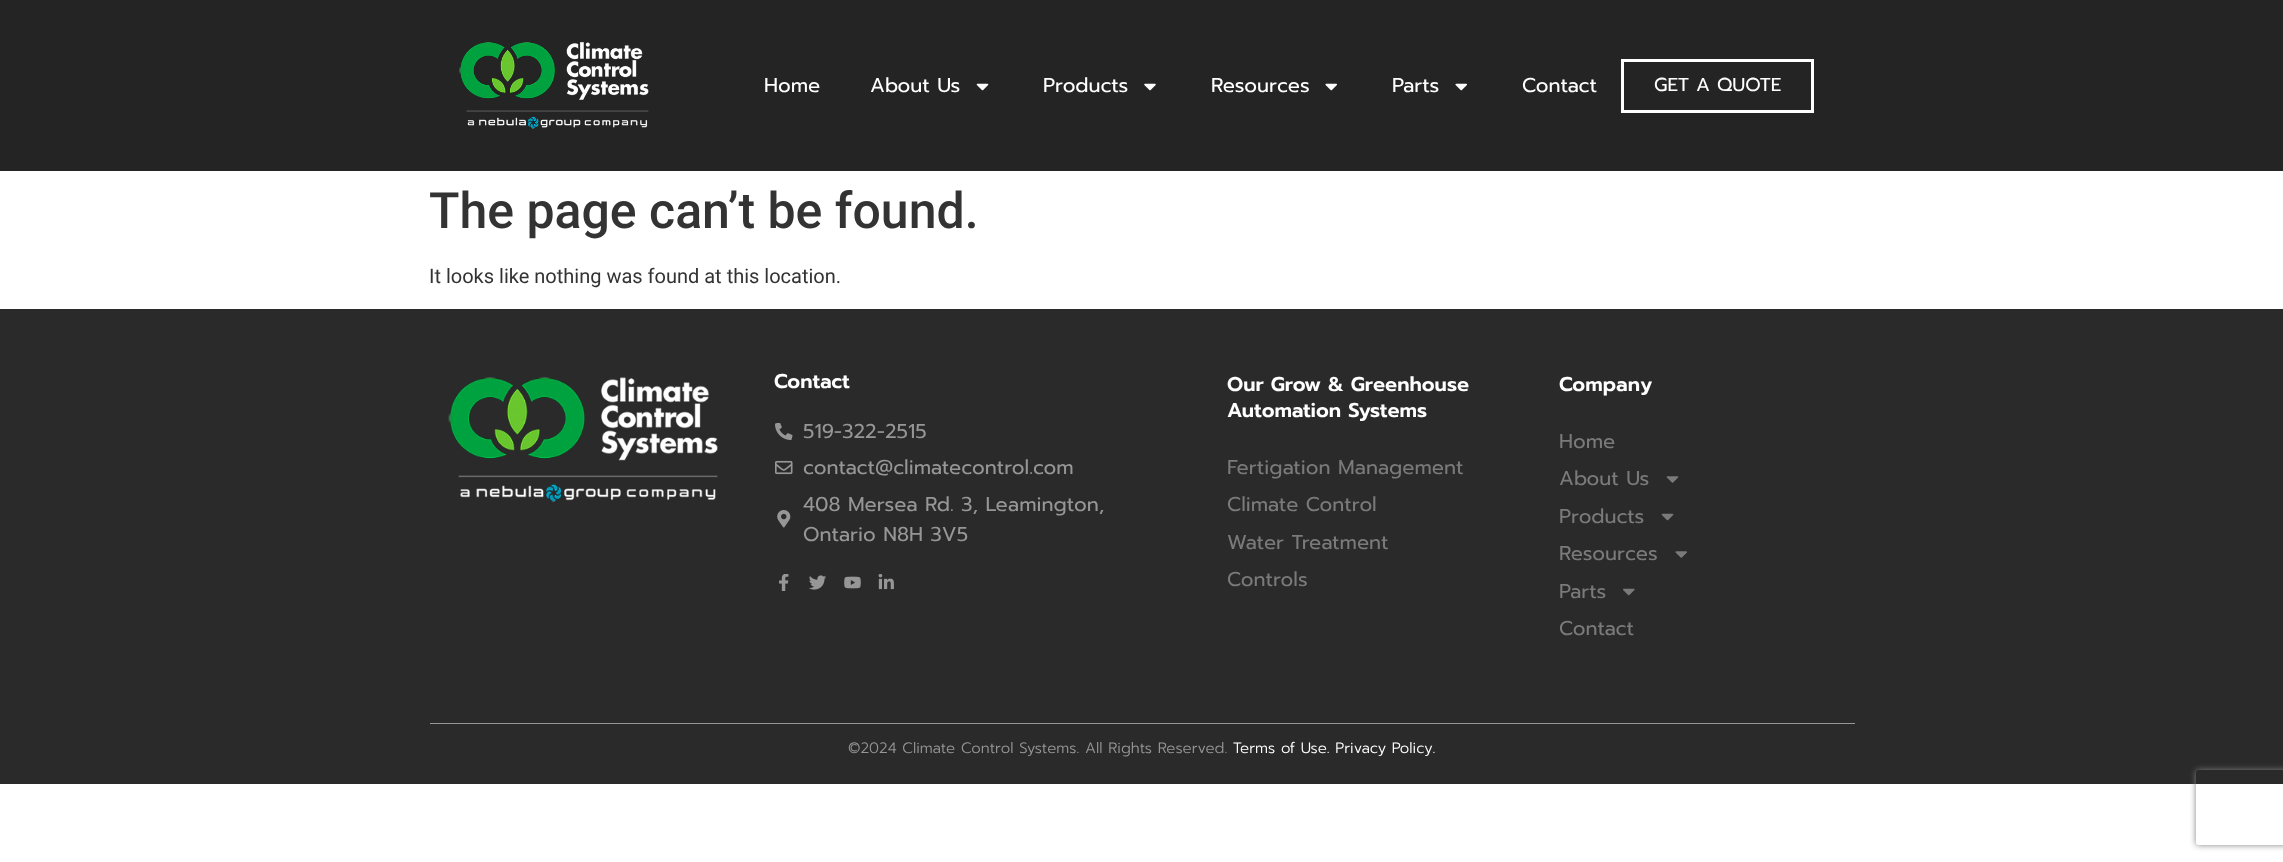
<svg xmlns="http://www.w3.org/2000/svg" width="2283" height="862">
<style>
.a{font:20px Prompt;fill:#fff}
.b{font:18.75px Prompt;fill:#fff}
.c{font:500 50px Roboto;fill:#333}
.d{font:20px Roboto;fill:#333}
.e{font:600 20px Prompt;fill:#fff}
.f{font:20px Prompt;fill:#969696}
.g{font:20px Prompt;fill:#7a7a7a}
.h{font:300 15px Prompt;fill:#969696}
.i{font:300 15px Prompt;fill:#fff}
</style>
<defs>
<clipPath id="clip1"><path d="M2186 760h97v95h-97zm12.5 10h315c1.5 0 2.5 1 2.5 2.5v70c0 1.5-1 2.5-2.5 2.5h-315c-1.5 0-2.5-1-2.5-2.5v-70c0-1.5 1-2.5 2.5-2.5z" clip-rule="evenodd"/></clipPath>
</defs>
<rect width="100%" height="100%" fill="#fff"/>
<path fill="#242424" d="M0 0h2283v171H0z"/>
<image href="1.png" x="459" y="42" width="190" height="87"/>
<image href="2.png" x="976" y="83" width="13" height="8"/>
<image href="3.png" x="1144" y="83" width="12" height="8"/>
<image href="4.png" x="1325" y="83" width="12" height="8"/>
<image href="4.png" x="1455" y="83" width="12" height="8"/>
<path fill="none" stroke="#fff" stroke-width="3" d="M1622.5 60.5h190v51H1622.5z"/>
<path fill="#2a2a2a" d="M0 309h2283v475H0z"/>
<image href="5.png" x="448" y="377" width="270" height="125"/>
<image href="6.png" x="775" y="423" width="18" height="17"/>
<image href="7.png" x="775" y="460" width="18" height="15"/>
<image href="8.png" x="777" y="510" width="14" height="18"/>
<image href="9.png" x="779" y="574" width="10" height="17"/>
<image href="10.png" x="809" y="575" width="17" height="15"/>
<image href="11.png" x="844" y="576" width="17" height="13"/>
<image href="12.png" x="878" y="574" width="16" height="16"/>
<image href="13.png" x="1666" y="476" width="13" height="7"/>
<image href="14.png" x="1661" y="513" width="13" height="8"/>
<image href="15.png" x="1675" y="551" width="12" height="7"/>
<image href="16.png" x="1623" y="588" width="12" height="8"/>
<path fill="#969696" d="M430 723h1425v1H430z"/>
<g clip-path="url(#clip1)">
<rect fill="#808080" filter="blur(3px)" x="2196" y="770" width="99" height="75" rx="2.5"/>
</g>
<text class="a" x="764" y="92">Home</text>
<text class="a" x="870" y="92">About Us</text>
<text class="a" x="1043" y="92">Products</text>
<text class="a" x="1211" y="92">Resources</text>
<text class="a" x="1392" y="92">Parts</text>
<text class="a" x="1522" y="92">Contact</text>
<text class="b" x="1654" y="91">GET A QUOTE</text>
<text class="c" x="429" y="228">The page can’t be found.</text>
<text class="d" x="429" y="283">It looks like nothing was found at this location.</text>
<text class="e" x="774" y="388">Contact</text>
<text class="f" x="803" y="438">519-322-2515</text>
<text class="f" x="803" y="474">contact@climatecontrol.com</text>
<text class="f" x="803" y="511">408 Mersea Rd. 3, Leamington,</text>
<text class="f" x="803" y="541">Ontario N8H 3V5</text>
<text class="e" x="1227" y="391">Our Grow &amp; Greenhouse</text>
<text class="e" x="1227" y="417">Automation Systems</text>
<text class="g" x="1227" y="474">Fertigation Management</text>
<text class="g" x="1227" y="511">Climate Control</text>
<text class="g" x="1227" y="549">Water Treatment</text>
<text class="g" x="1227" y="586">Controls</text>
<text class="e" x="1559" y="391">Company</text>
<text class="g" x="1559" y="448">Home</text>
<text class="g" x="1559" y="485">About Us</text>
<text class="g" x="1559" y="523">Products</text>
<text class="g" x="1559" y="560">Resources</text>
<text class="g" x="1559" y="598">Parts</text>
<text class="g" x="1559" y="635">Contact</text>
<text class="h" x="848" y="753">©2024 Climate Control Systems. All Rights Reserved.</text>
<text class="i" x="1233" y="753">Terms of Use. Privacy Policy.</text>
</svg>
